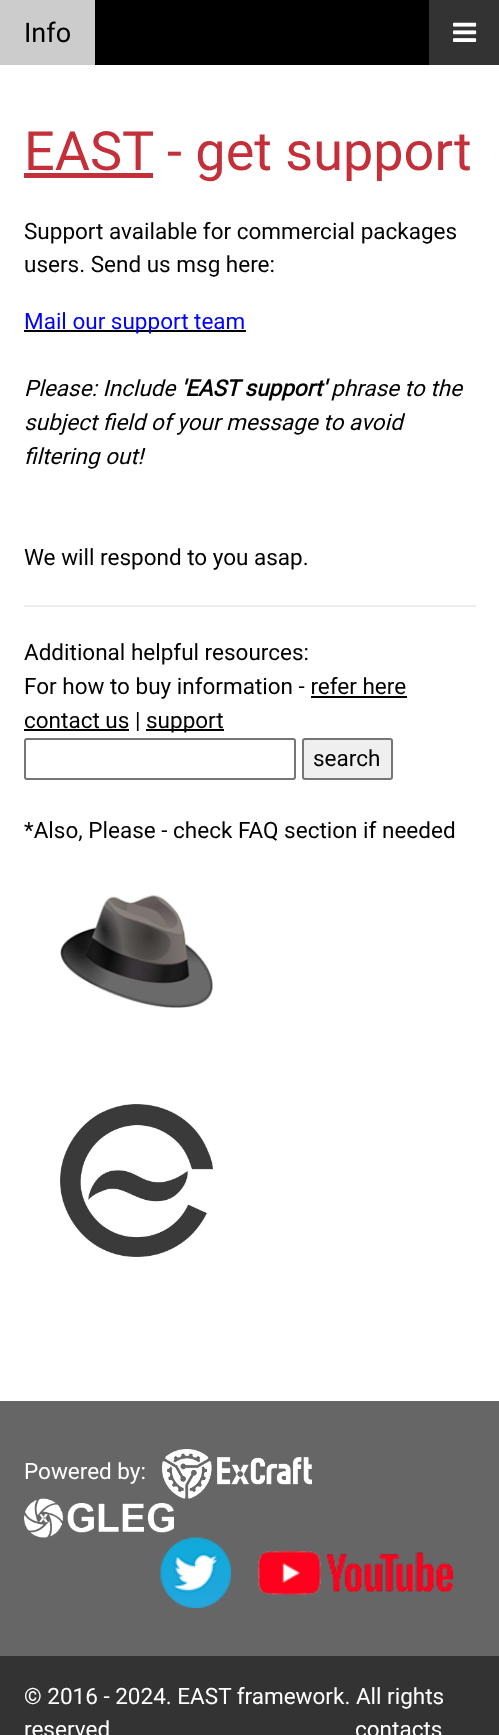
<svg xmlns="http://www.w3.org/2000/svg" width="499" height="1735">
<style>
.a{font:27px Roboto;fill:#000}
.b{font:54px Roboto;fill:#c4303a}
.c{font:22.5px Roboto;fill:#000}
.d{font:22.5px Roboto;fill:#00f}
.e{font:italic 22.5px Roboto;fill:#000}
.f{font:italic bold 22.5px Roboto;fill:#000}
.g{font:22.5px Roboto;fill:#fff}
</style>
<rect width="100%" height="100%" fill="#fff"/>
<path fill="#000" d="M95 0h334v65H95z"/>
<path fill="#ccc" d="M0 0h95v65H0z"/>
<path fill="#333" d="M429 0h70v65H429z"/>
<image href="1.png" x="453" y="22" width="24" height="20"/>
<path fill="#c4303a" d="M24 173h129v5H24z"/>
<path fill="#000" d="M24 330h222v2H24z"/>
<path fill="#eee" d="M24 605h452v2H24z"/>
<path fill="#000" d="M311 696h96v2H311z"/>
<path fill="#000" d="M24 729h105v2H24z"/>
<path fill="#000" d="M146 729h78v2H146z"/>
<rect fill="none" stroke="#767676" stroke-width="2" x="25" y="739" width="270" height="40" rx="2"/>
<rect fill="#efefef" stroke="#767676" stroke-width="2" x="303" y="739" width="89" height="40" rx="2"/>
<image href="2.png" x="60" y="895" width="153" height="113"/>
<image href="3.png" x="60" y="1104" width="153" height="153"/>
<path fill="#666" d="M0 1401h499v255H0z"/>
<image href="4.png" x="162" y="1449" width="150" height="50"/>
<image href="6.png" x="160" y="1537" width="71" height="71"/>
<image href="5.png" x="24" y="1498" width="150" height="40"/>
<image href="7.png" x="258" y="1551" width="195" height="44"/>
<path fill="#333" d="M0 1656h499v79H0z"/>
<text class="a" x="24" y="42">Info</text>
<text class="b" x="24" y="170">EAST</text>
<text class="b" x="167" y="170">- get support</text>
<text class="c" x="24" y="239">Support available for commercial packages</text>
<text class="c" x="24" y="272">users. Send us msg here:</text>
<text class="d" x="24" y="329">Mail our support team</text>
<text class="e" x="24" y="396">Please: Include</text>
<text class="f" x="181" y="396">'EAST support'</text>
<text class="e" x="331" y="396">phrase to the</text>
<text class="e" x="24" y="430">subject field of your message to avoid</text>
<text class="e" x="24" y="464">filtering out!</text>
<text class="c" x="24" y="565">We will respond to you asap.</text>
<text class="c" x="24" y="660">Additional helpful resources:</text>
<text class="c" x="24" y="694">For how to buy information - refer here</text>
<text class="c" x="24" y="728">contact us |</text>
<text class="c" x="146" y="728">support</text>
<text class="c" x="313" y="766">search</text>
<text class="c" x="24" y="838">*Also, Please - check FAQ section if needed</text>
<text class="g" x="24" y="1479">Powered by:</text>
<text class="g" x="24" y="1704">© 2016 - 2024. EAST framework. All rights</text>
<text class="g" x="24" y="1737">reserved</text>
<text class="g" x="355" y="1737">contacts</text>
</svg>
